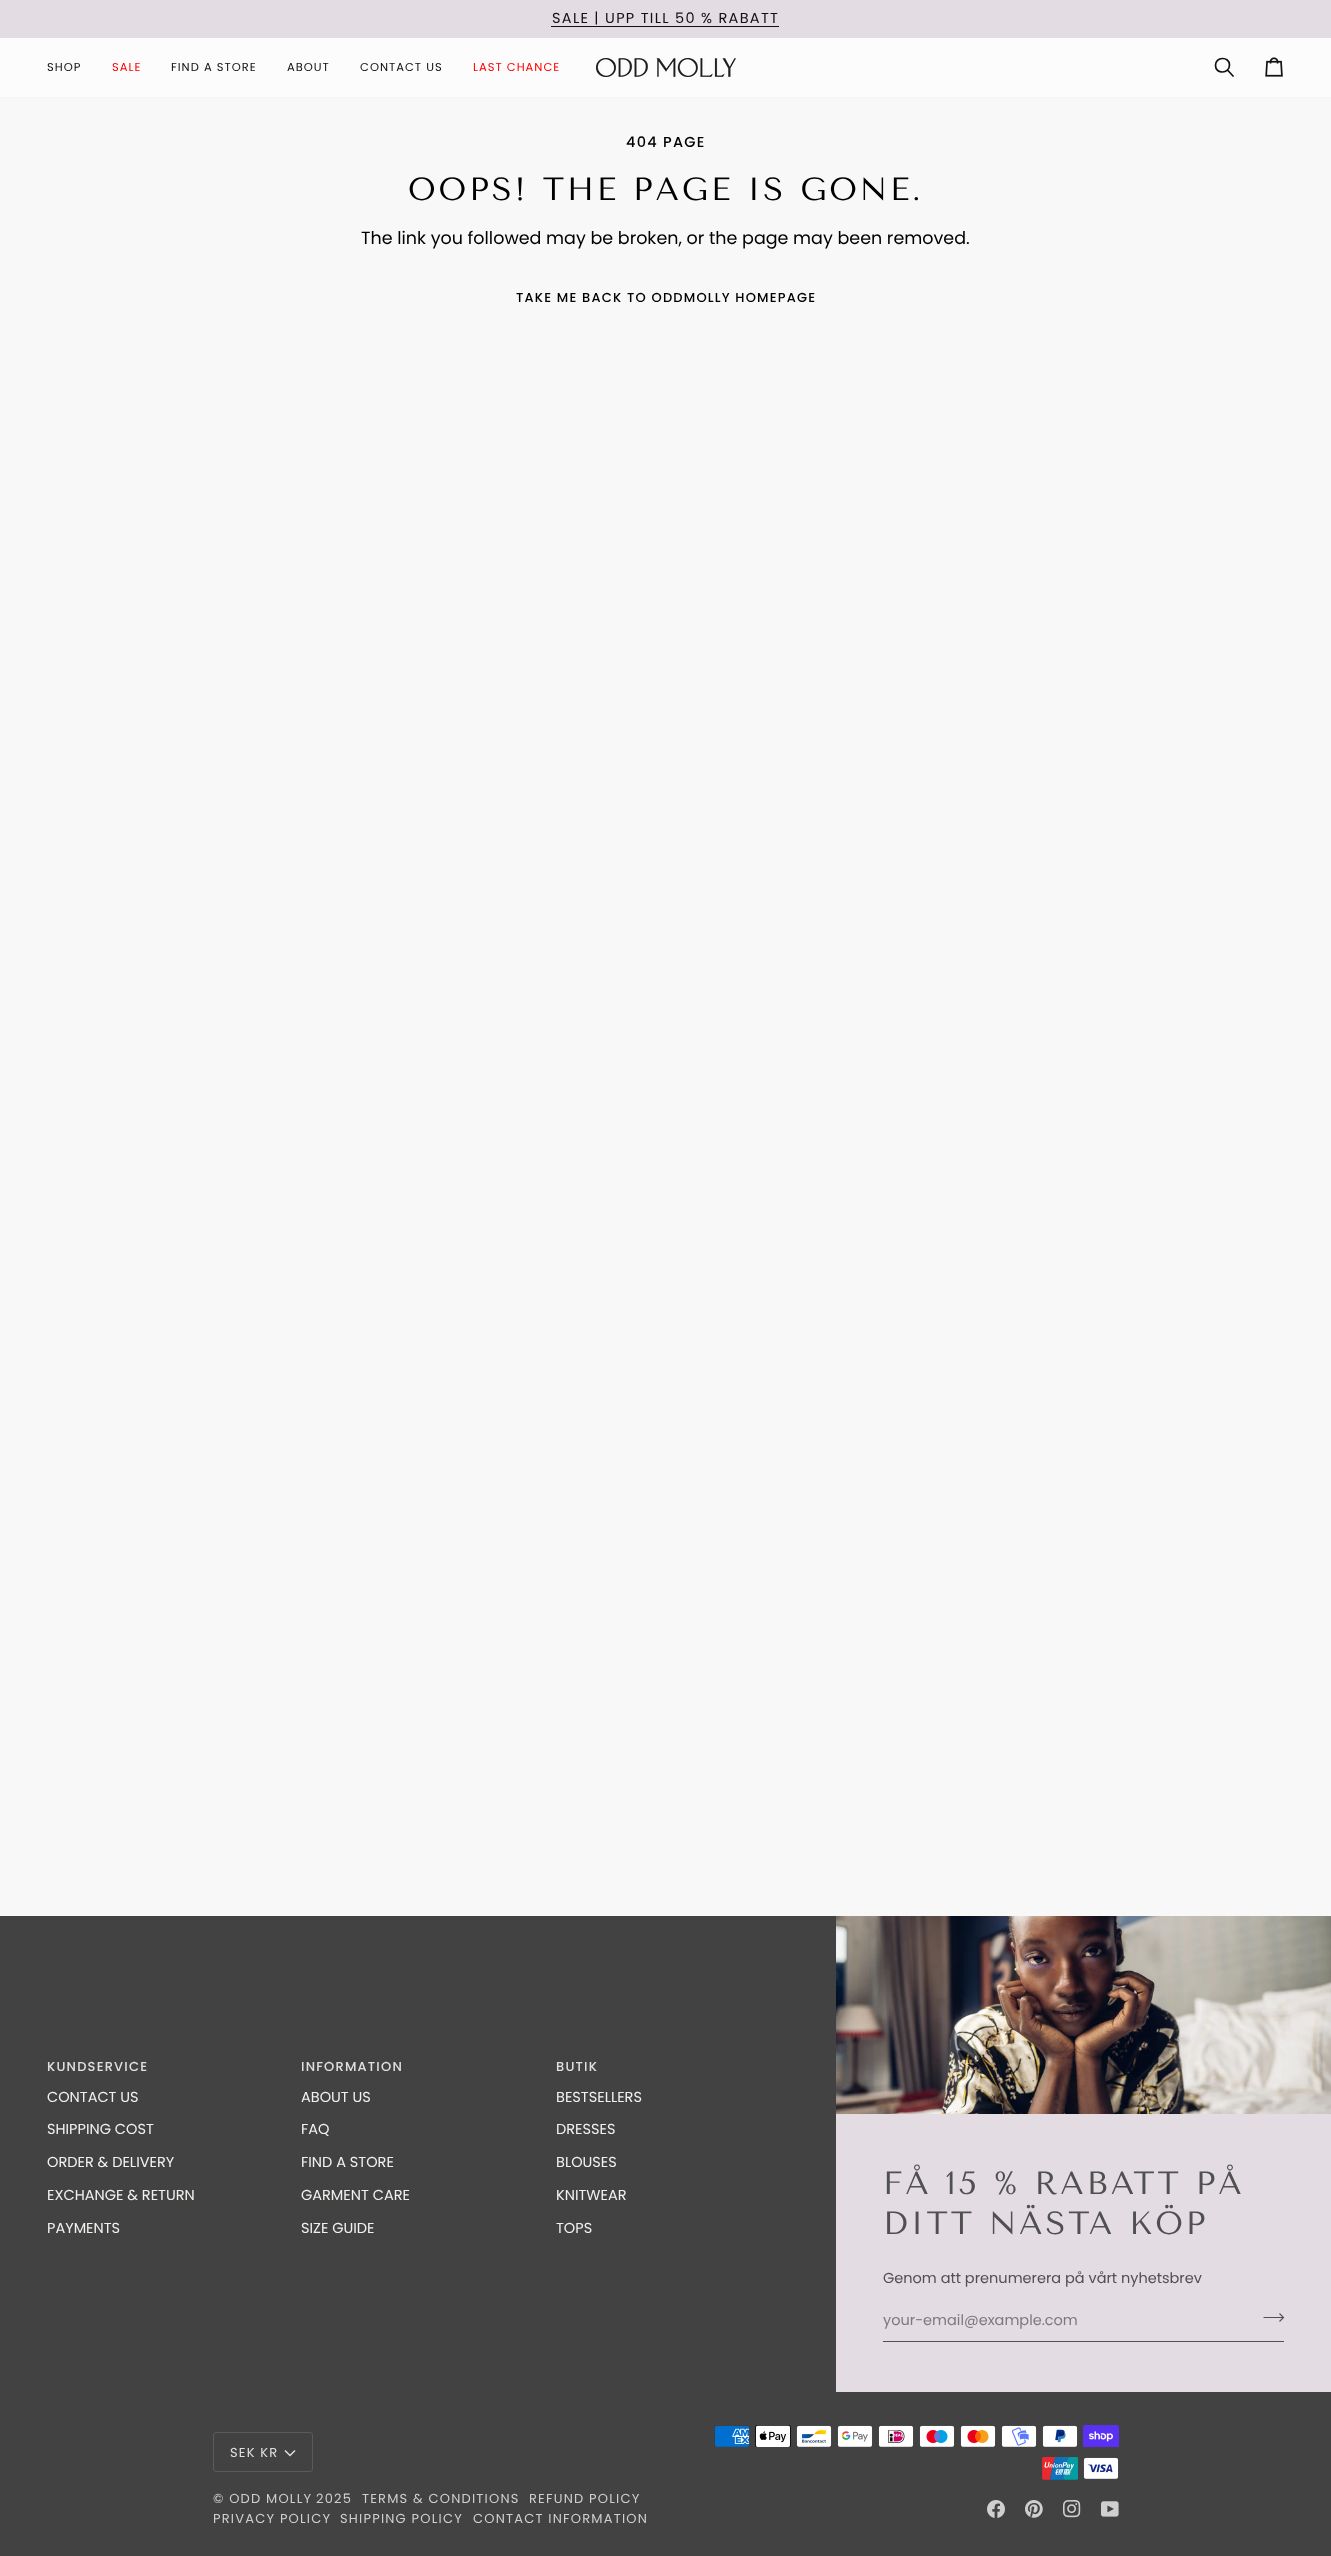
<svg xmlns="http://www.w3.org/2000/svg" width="1331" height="2556">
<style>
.a{font:14.5px Poppins;letter-spacing:1.3px;fill:#111}
.b{font:11.5px Poppins;letter-spacing:1px;fill:#111}
.c{font:11.5px Poppins;letter-spacing:1px;fill:#f00}
.d{font:500 14.5px Poppins;letter-spacing:1.3px;fill:#000}
.e{font:32px Tenor Sans;letter-spacing:2.9px;fill:#000}
.f{font:17.5px Poppins;fill:#000}
.g{font:500 13px Poppins;letter-spacing:1.2px;fill:#000}
.h{font:500 13px Poppins;letter-spacing:1.2px;fill:#e1e0dd}
.i{font:14.5px Poppins;fill:#f3f1ee}
.j{font:32px Tenor Sans;letter-spacing:2.9px;fill:#505050}
.k{font:14.5px Poppins;fill:#505050}
.l{font:14.5px Poppins;fill:#7c7a7c}
.m{font:13px Poppins;letter-spacing:1.2px;fill:#e1e0dd}
.n{font:13px Poppins;letter-spacing:1.2px;fill:#cfcfcf}
</style>
<rect width="100%" height="100%" fill="#f8f8f8"/>
<path fill="#e3dde3" d="M0 0h1331v38H0z"/>
<path fill="#111" d="M551 26h228v1H551z"/>
<path fill="#fcfcfc" d="M0 38h1331v59H0z"/>
<path fill="#f7f5f4" d="M0 97h1331v1H0z"/>
<image href="1.png" x="596" y="58" width="140" height="19"/>
<path fill="none" stroke="#111" stroke-width="1.7" stroke-linecap="round" stroke-linejoin="round" d="M1229.5 65c0 9-14 9.5-14 .5c-.5-9 14-9.5 14-.5zm3.5 11l-5.5-6z"/>
<image href="2.png" x="1265" y="57" width="18" height="20"/>
<path fill="#424242" d="M0 1916h836v476H0z"/>
<path fill="#e3dde3" d="M836 2114h495v278H836z"/>
<image href="3.png" x="836" y="1916" width="495" height="198"/>
<path fill="#505050" d="M883 2341h401v1H883z"/>
<path fill="none" stroke="#505050" stroke-width="1.1" d="M1279.5 2313.5l4 4l-4 4m-16-4h20"/>
<path fill="#424242" d="M0 2392h1331v164H0z"/>
<rect fill="none" stroke="#5a5a5a" x="213.5" y="2432.5" width="99" height="39" rx="2.5"/>
<path fill="none" stroke="#dfdfdf" stroke-width="1.5" stroke-linecap="square" d="M285.5 2451l4.5 4.5l4.5-4.5"/>
<image href="4.png" x="714" y="2425" width="36" height="22"/>
<image href="5.png" x="755" y="2425" width="36" height="22"/>
<image href="6.png" x="796" y="2425" width="36" height="22"/>
<image href="7.png" x="837" y="2425" width="36" height="22"/>
<image href="8.png" x="878" y="2425" width="36" height="22"/>
<image href="9.png" x="919" y="2425" width="36" height="22"/>
<image href="10.png" x="960" y="2425" width="36" height="22"/>
<image href="11.png" x="1001" y="2425" width="36" height="22"/>
<image href="12.png" x="1042" y="2425" width="36" height="22"/>
<image href="13.png" x="1083" y="2425" width="36" height="22"/>
<image href="14.png" x="1042" y="2457" width="36" height="23"/>
<image href="15.png" x="1083" y="2457" width="36" height="22"/>
<image href="16.png" x="987" y="2500" width="18" height="18"/>
<image href="17.png" x="1025" y="2500" width="18" height="18"/>
<image href="18.png" x="1063" y="2500" width="18" height="18"/>
<image href="19.png" x="1101" y="2501" width="18" height="16"/>
<text class="a" x="552" y="23">SALE | UPP TILL 50 % RABATT</text>
<text class="b" x="47" y="71">SHOP</text>
<text class="c" x="112" y="71">SALE</text>
<text class="b" x="171" y="71">FIND A STORE</text>
<text class="b" x="287" y="71">ABOUT</text>
<text class="b" x="360" y="71">CONTACT US</text>
<text class="c" x="473" y="71">LAST CHANCE</text>
<text class="d" x="626" y="147">404 PAGE</text>
<text class="e" x="408" y="200">OOPS! THE PAGE IS GONE.</text>
<text class="f" x="361" y="244">The link you followed may be broken, or the page may been removed.</text>
<text class="g" x="516" y="302">TAKE ME BACK TO ODDMOLLY HOMEPAGE</text>
<text class="h" x="47" y="2071">KUNDSERVICE</text>
<text class="i" x="47" y="2102">CONTACT US</text>
<text class="i" x="47" y="2134">SHIPPING COST</text>
<text class="i" x="47" y="2167">ORDER &amp; DELIVERY</text>
<text class="i" x="47" y="2200">EXCHANGE &amp; RETURN</text>
<text class="i" x="47" y="2233">PAYMENTS</text>
<text class="h" x="301" y="2071">INFORMATION</text>
<text class="i" x="301" y="2102">ABOUT US</text>
<text class="i" x="301" y="2134">FAQ</text>
<text class="i" x="301" y="2167">FIND A STORE</text>
<text class="i" x="301" y="2200">GARMENT CARE</text>
<text class="i" x="301" y="2233">SIZE GUIDE</text>
<text class="h" x="556" y="2071">BUTIK</text>
<text class="i" x="556" y="2102">BESTSELLERS</text>
<text class="i" x="556" y="2134">DRESSES</text>
<text class="i" x="556" y="2167">BLOUSES</text>
<text class="i" x="556" y="2200">KNITWEAR</text>
<text class="i" x="556" y="2233">TOPS</text>
<text class="j" x="883" y="2194">FÅ 15 % RABATT PÅ</text>
<text class="j" x="883" y="2234">DITT NÄSTA KÖP</text>
<text class="k" x="883" y="2283">Genom att prenumerera på vårt nyhetsbrev</text>
<text class="l" x="883" y="2325">your-email@example.com</text>
<text class="m" x="230" y="2457">SEK KR</text>
<text class="n" x="213" y="2503">© ODD MOLLY</text>
<text class="n" x="316" y="2503">2025</text>
<text class="n" x="362" y="2503">TERMS &amp; CONDITIONS</text>
<text class="n" x="529" y="2503">REFUND POLICY</text>
<text class="n" x="213" y="2523">PRIVACY POLICY</text>
<text class="n" x="340" y="2523">SHIPPING POLICY</text>
<text class="n" x="473" y="2523">CONTACT INFORMATION</text>
</svg>
